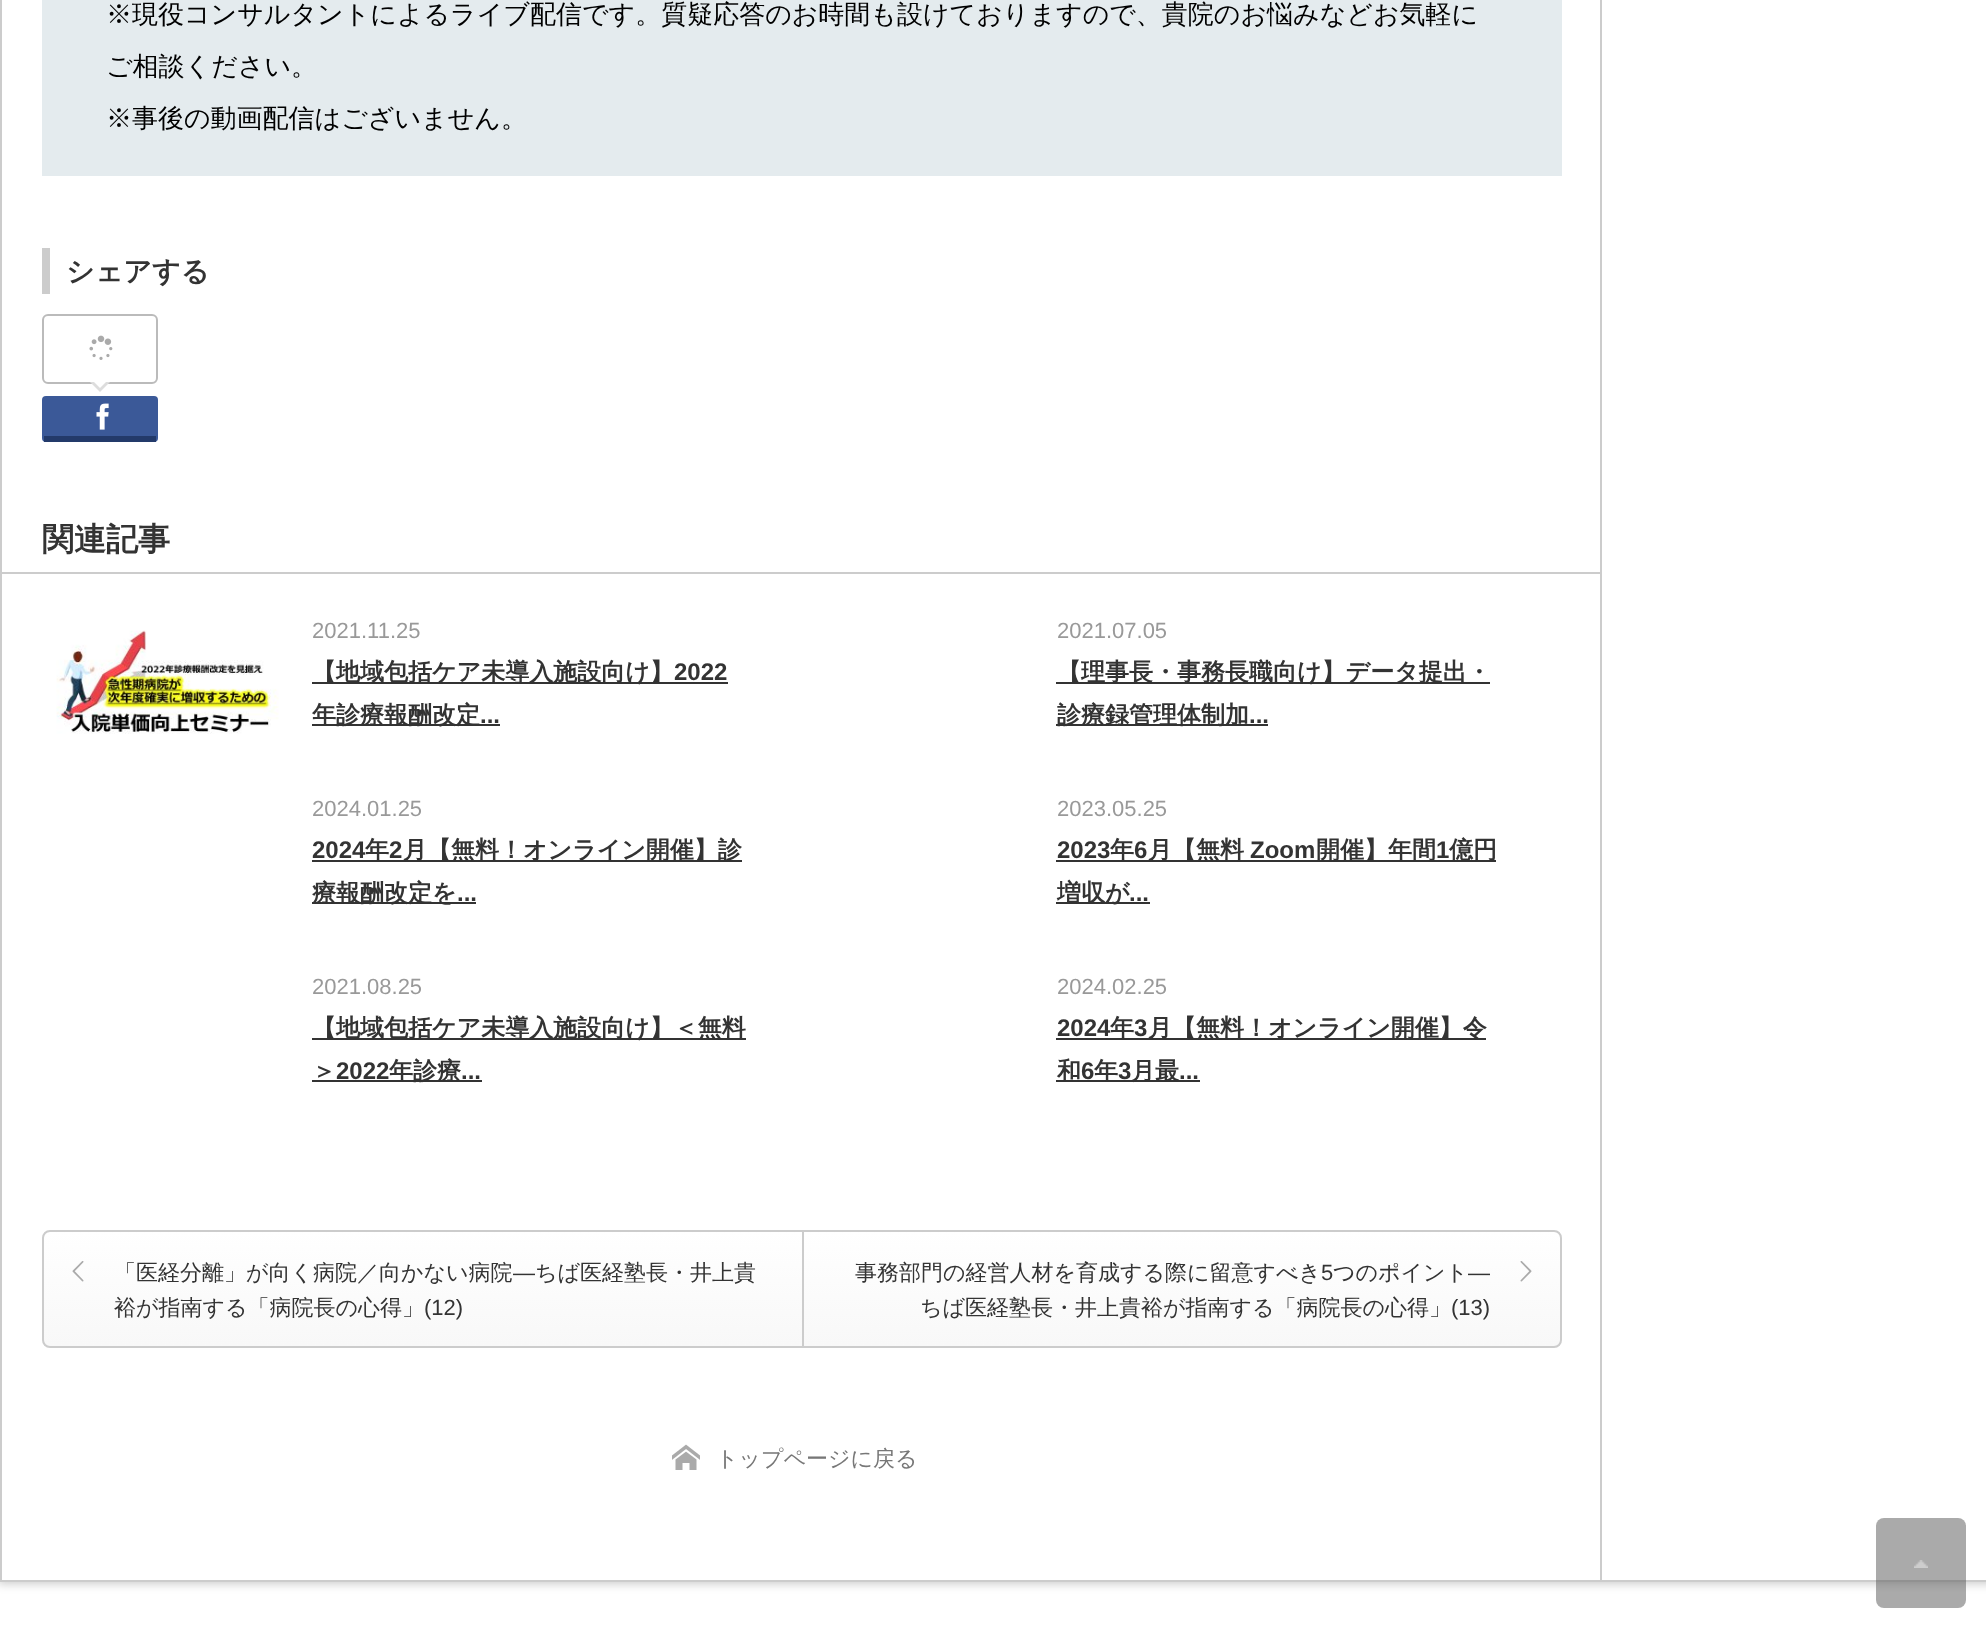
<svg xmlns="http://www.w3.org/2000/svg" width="1986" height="1628">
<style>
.a{font:500 26px WenQuanYi Zen Hei;fill:#000}
.b{font:bold 28px WenQuanYi Zen Hei;fill:#333}
.c{font:bold 32px WenQuanYi Zen Hei;fill:#333}
.d{font:22px Liberation Sans;fill:#999}
.e{font:bold 24px WenQuanYi Zen Hei;fill:#333}
.f{font:bold 24px Liberation Sans;fill:#333}
.g{font:500 22px WenQuanYi Zen Hei;fill:#333}
.h{font:22px Liberation Sans;fill:#333}
.i{font:500 22px WenQuanYi Zen Hei;fill:#777}
</style>
<defs>
<clipPath id="clip1"><path d="M50 1230h754v118h-754c-4.5 0-8-3.5-8-8v-102c0-4.5 3.5-8 8-8z"/></clipPath>
<linearGradient id="g1" gradientUnits="userSpaceOnUse" x1="423" y1="1232" x2="423" y2="1346"><stop offset="0" stop-color="#fff"/><stop offset="1" stop-color="#f8f8f8"/></linearGradient>
<clipPath id="clip2"><path d="M802 1230h752c4.5 0 8 3.5 8 8v102c0 4.5-3.5 8-8 8h-752z"/></clipPath>
<linearGradient id="g2" gradientUnits="userSpaceOnUse" x1="1182" y1="1232" x2="1182" y2="1346"><stop offset="0" stop-color="#fff"/><stop offset="1" stop-color="#f8f8f8"/></linearGradient>
</defs>
<rect width="100%" height="100%" fill="#fff"/>
<path fill="#00000033" filter="blur(5px)" d="M-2 -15h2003v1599H-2z"/>
<path fill="#fff" d="M2 0h1984v1580H2z"/>
<path fill="#ccc" d="M1600 0h2v1582H1600z"/>
<path fill="none" stroke="#ccc" stroke-width="2" d="M1 -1h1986v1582H1z"/>
<path fill="#e4ebee" d="M42 0h1520v176H42z"/>
<path fill="#ccc" d="M42 248h8v46H42z"/>
<rect fill="none" stroke="#bbb" stroke-width="2" x="43" y="315" width="114" height="68" rx="5"/>
<image href="1.png" x="89" y="335" width="24" height="25"/>
<path fill="#ddd" d="M90 382h20l-10 10z"/>
<path fill="#fff" d="M94 382h12l-6 6z"/>
<rect fill="#3b5998" x="42" y="396" width="116" height="46" rx="4"/>
<path fill="#233a6a" d="M44 436h112v6H44z"/>
<image href="2.png" x="96" y="403" width="13" height="27"/>
<path fill="#ccc" d="M2 572h1600v2H2z"/>
<image href="3.png" x="56" y="630" width="223" height="104"/>
<path fill="#333" d="M312 682h416v2H312z"/>
<path fill="#333" d="M312 724h188v2H312z"/>
<path fill="#333" d="M1056 682h434v2H1056z"/>
<path fill="#333" d="M1056 724h212v2H1056z"/>
<path fill="#333" d="M312 860h430v2H312z"/>
<path fill="#333" d="M312 902h164v2H312z"/>
<path fill="#333" d="M1056 860h440v2H1056z"/>
<path fill="#333" d="M1056 902h94v2H1056z"/>
<path fill="#333" d="M312 1038h434v2H312z"/>
<path fill="#333" d="M312 1080h170v2H312z"/>
<path fill="#333" d="M1056 1038h430v2H1056z"/>
<path fill="#333" d="M1056 1080h144v2H1056z"/>
<g clip-path="url(#clip1)">
<path fill="url(#g1)" d="M42 1232h760v114H42z"/>
</g>
<path fill="none" stroke="#ccc" stroke-width="2" d="M50 1231h753v116h-753c-4 0-7-3-7-7v-102c0-4 3-7 7-7z"/>
<image href="4.png" x="72" y="1261" width="12" height="21"/>
<g clip-path="url(#clip2)">
<path fill="url(#g2)" d="M804 1232h758v114H804z"/>
</g>
<path fill="none" stroke="#ccc" stroke-width="2" d="M803 1231h751c4 0 7 3 7 7v102c0 4-3 7-7 7h-751z"/>
<image href="5.png" x="1520" y="1261" width="12" height="21"/>
<image href="6.png" x="672" y="1444" width="28" height="26"/>
<rect fill="#55555580" x="1876" y="1518" width="90" height="90" rx="8"/>
<image href="7.png" x="1914" y="1560" width="14" height="8"/>
<text class="a" x="106" y="23">※現役コンサルタントによるライブ配信です。質疑応答のお時間も設けておりますので、貴院のお悩みなどお気軽に</text>
<text class="a" x="106" y="75">ご相談ください。</text>
<text class="a" x="106" y="127">※事後の動画配信はございません。</text>
<text class="b" x="66" y="281">シェアする</text>
<text class="c" x="42" y="550">関連記事</text>
<text class="d" x="312" y="638">2021.11.25</text>
<text class="e" x="312" y="680">【地域包括ケア未導入施設向け】</text>
<text class="f" x="674" y="680">2022</text>
<text class="e" x="312" y="723">年診療報酬改定</text>
<text class="f" x="480" y="723">...</text>
<text class="d" x="1057" y="638">2021.07.05</text>
<text class="e" x="1057" y="680">【理事長・事務長職向け】データ提出・</text>
<text class="e" x="1057" y="723">診療録管理体制加</text>
<text class="f" x="1249" y="723">...</text>
<text class="d" x="312" y="816">2024.01.25</text>
<text class="f" x="312" y="858">2024</text>
<text class="e" x="365" y="858">年</text>
<text class="f" x="389" y="858">2</text>
<text class="e" x="403" y="858">月【無料！オンライン開催】診</text>
<text class="e" x="312" y="901">療報酬改定を</text>
<text class="f" x="457" y="901">...</text>
<text class="d" x="1057" y="816">2023.05.25</text>
<text class="f" x="1057" y="858">2023</text>
<text class="e" x="1110" y="858">年</text>
<text class="f" x="1134" y="858">6</text>
<text class="e" x="1148" y="858">月【無料</text>
<text class="f" x="1250" y="858">Zoom</text>
<text class="e" x="1316" y="858">開催】年間</text>
<text class="f" x="1436" y="858">1</text>
<text class="e" x="1449" y="858">億円</text>
<text class="e" x="1057" y="901">増収が</text>
<text class="f" x="1129" y="901">...</text>
<text class="d" x="312" y="994">2021.08.25</text>
<text class="e" x="312" y="1036">【地域包括ケア未導入施設向け】＜無料</text>
<text class="e" x="312" y="1079">＞</text>
<text class="f" x="336" y="1079">2022</text>
<text class="e" x="389" y="1079">年診療</text>
<text class="f" x="461" y="1079">...</text>
<text class="d" x="1057" y="994">2024.02.25</text>
<text class="f" x="1057" y="1036">2024</text>
<text class="e" x="1110" y="1036">年</text>
<text class="f" x="1134" y="1036">3</text>
<text class="e" x="1148" y="1036">月【無料！オンライン開催】令</text>
<text class="e" x="1057" y="1079">和</text>
<text class="f" x="1081" y="1079">6</text>
<text class="e" x="1094" y="1079">年</text>
<text class="f" x="1118" y="1079">3</text>
<text class="e" x="1131" y="1079">月最</text>
<text class="f" x="1179" y="1079">...</text>
<text class="g" x="114" y="1280">「医経分離」が向く病院／向かない病院</text>
<text class="h" x="513" y="1280">―</text>
<text class="g" x="535" y="1280">ちば医経塾長・井上貴</text>
<text class="g" x="114" y="1315">裕が指南する「病院長の心得」</text>
<text class="h" x="424" y="1315">(12)</text>
<text class="g" x="855" y="1280">事務部門の経営人材を育成する際に留意すべき</text>
<text class="h" x="1321" y="1280">5</text>
<text class="g" x="1333" y="1280">つのポイント</text>
<text class="h" x="1468" y="1280">―</text>
<text class="g" x="920" y="1315">ちば医経塾長・井上貴裕が指南する「病院長の心得」</text>
<text class="h" x="1451" y="1315">(13)</text>
<text class="i" x="716" y="1466">トップページに戻る</text>
</svg>
